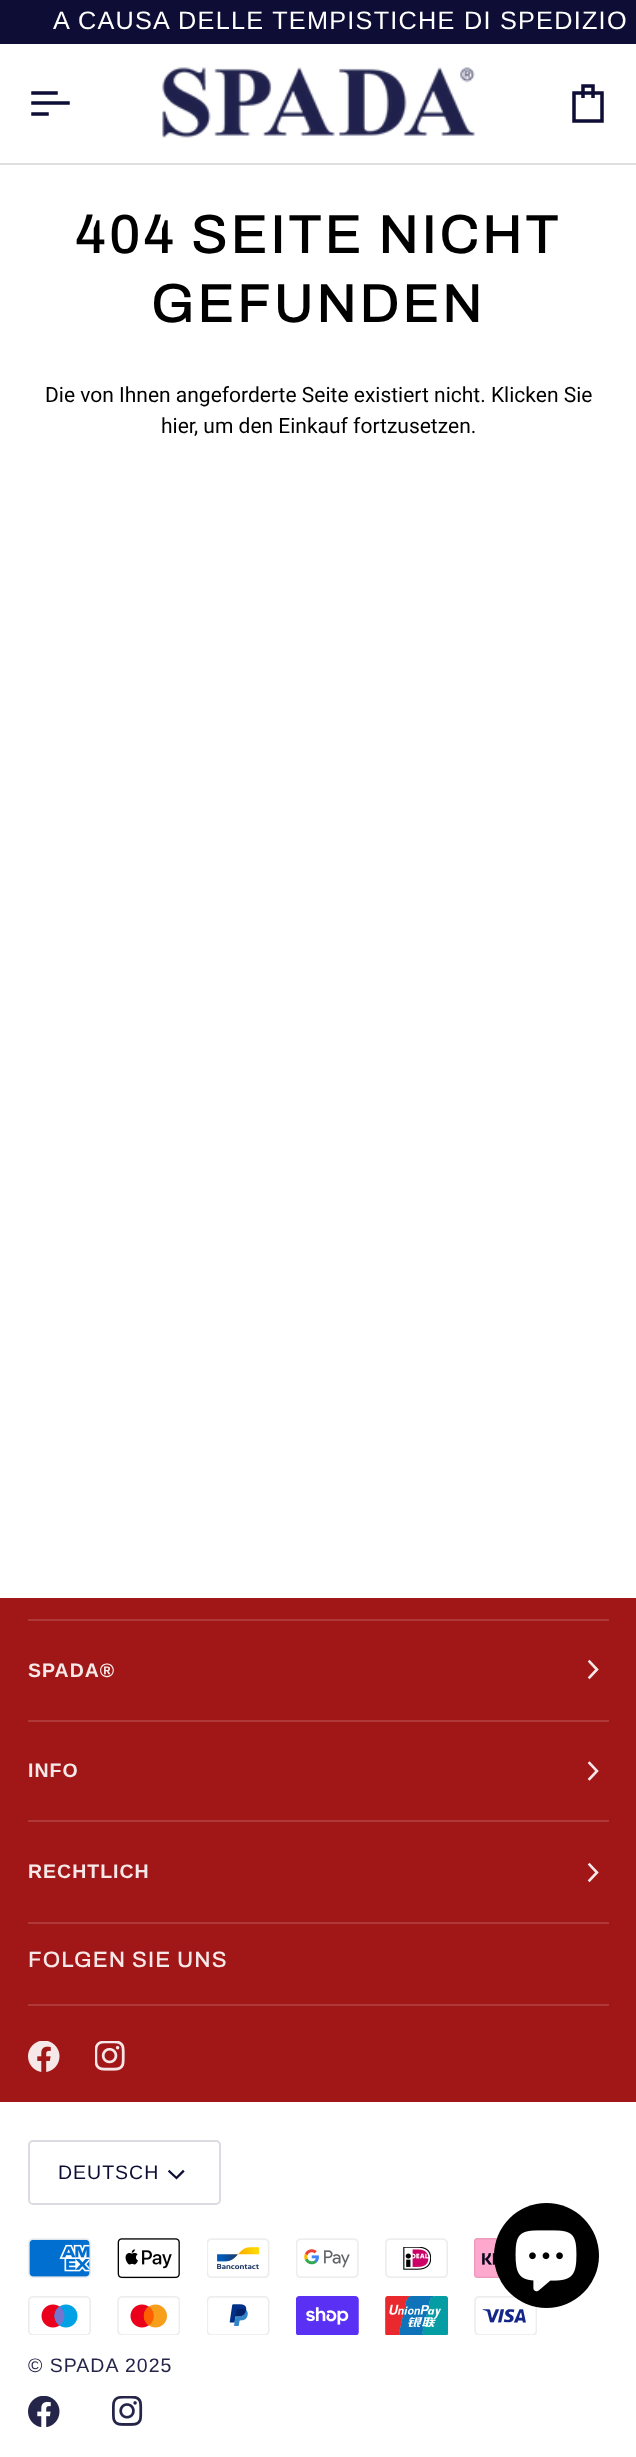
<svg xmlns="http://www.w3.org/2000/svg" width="636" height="2457">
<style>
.a{font:25.25px Liberation Sans;letter-spacing:1.25px;fill:#fff}
.b{font:500 55px Archivo;letter-spacing:2.75px;fill:#000}
.c{font:21px Roboto;fill:#000}
.d{font:bold 19.5px Liberation Sans;letter-spacing:1px;fill:#f6e8e8}
.e{font:500 22.25px Archivo;letter-spacing:1.1px;fill:#f6e8e8}
.f{font:19.5px Liberation Sans;letter-spacing:1px;fill:#0d0d35}
.g{font:19.5px Liberation Sans;letter-spacing:1px;fill:#252549}
</style>
<rect width="100%" height="100%" fill="#fff"/>
<path fill="#0d0d35" d="M0 0h636v44H0z"/>
<path fill="#dfdfdf" d="M0 163h636v2H0z"/>
<path fill="none" stroke="#0d0d35" stroke-width="3.5" stroke-linecap="square" d="M56 93h-23m35 10h-35m14 11h-14"/>
<image href="1.png" x="162" y="67" width="313" height="71"/>
<path fill="none" stroke="#0d0d35" stroke-width="3.5" d="M574 93h28v28h-28zm9 5v-12h10v12"/>
<path fill="#a11616" d="M0 1598h636v504H0z"/>
<path fill="#af3939" d="M28 1619h581v2H28z"/>
<path fill="#af3939" d="M28 1720h581v2H28z"/>
<path fill="none" stroke="#f6e8e8" stroke-width="2.6" stroke-linecap="square" d="M589.5 1677.5l7.5-8l-7.5-8"/>
<path fill="#af3939" d="M28 1820h581v2H28z"/>
<path fill="none" stroke="#f6e8e8" stroke-width="2.6" stroke-linecap="square" d="M589.5 1779l7.5-8l-7.5-8"/>
<path fill="#af3939" d="M28 1922h581v2H28z"/>
<path fill="none" stroke="#f6e8e8" stroke-width="2.6" stroke-linecap="square" d="M589.5 1880.5l7.5-8l-7.5-8"/>
<path fill="#af3939" d="M28 2004h581v2H28z"/>
<image href="2.png" x="28" y="2041" width="32" height="31"/>
<image href="3.png" x="95" y="2041" width="30" height="30"/>
<rect fill="none" stroke="#dbdbe1" stroke-width="2" x="29" y="2141" width="191" height="63" rx="4"/>
<path fill="none" stroke="#0d0d35" stroke-width="2.3" stroke-linecap="square" d="M169.5 2171.5l7 6.5l6.5-6.5"/>
<image href="4.png" x="28" y="2238" width="63" height="40"/>
<image href="5.png" x="117" y="2238" width="63" height="41"/>
<image href="6.png" x="207" y="2238" width="63" height="40"/>
<image href="7.png" x="296" y="2238" width="63" height="40"/>
<image href="8.png" x="385" y="2238" width="63" height="40"/>
<image href="9.png" x="474" y="2238" width="26" height="40"/>
<image href="10.png" x="28" y="2296" width="63" height="39"/>
<image href="11.png" x="117" y="2296" width="63" height="39"/>
<image href="12.png" x="207" y="2296" width="63" height="39"/>
<image href="13.png" x="296" y="2296" width="63" height="39"/>
<image href="14.png" x="385" y="2296" width="63" height="39"/>
<image href="15.png" x="474" y="2296" width="63" height="39"/>
<image href="16.png" x="28" y="2396" width="32" height="31"/>
<image href="17.png" x="112" y="2396" width="31" height="30"/>
<circle fill="#000" cx="546.5" cy="2255.5" r="52.5"/>
<image href="18.png" x="515" y="2230" width="62" height="62"/>
<text class="a" x="53" y="29">A CAUSA DELLE TEMPISTICHE DI SPEDIZIO</text>
<text class="b" x="75" y="253">404 SEITE NICHT</text>
<text class="b" x="151" y="322">GEFUNDEN</text>
<text class="c" x="45" y="402">Die von Ihnen angeforderte Seite existiert nicht. Klicken Sie</text>
<text class="c" x="161" y="433">hier</text>
<text class="c" x="194" y="433">, um den Einkauf fortzusetzen.</text>
<text class="d" x="28" y="1677">SPADA®</text>
<text class="d" x="28" y="1777">INFO</text>
<text class="d" x="28" y="1878">RECHTLICH</text>
<text class="e" x="28" y="1967">FOLGEN SIE UNS</text>
<text class="f" x="58" y="2179">DEUTSCH</text>
<text class="g" x="28" y="2372">© SPADA</text>
<text class="g" x="125" y="2372">2025</text>
</svg>
